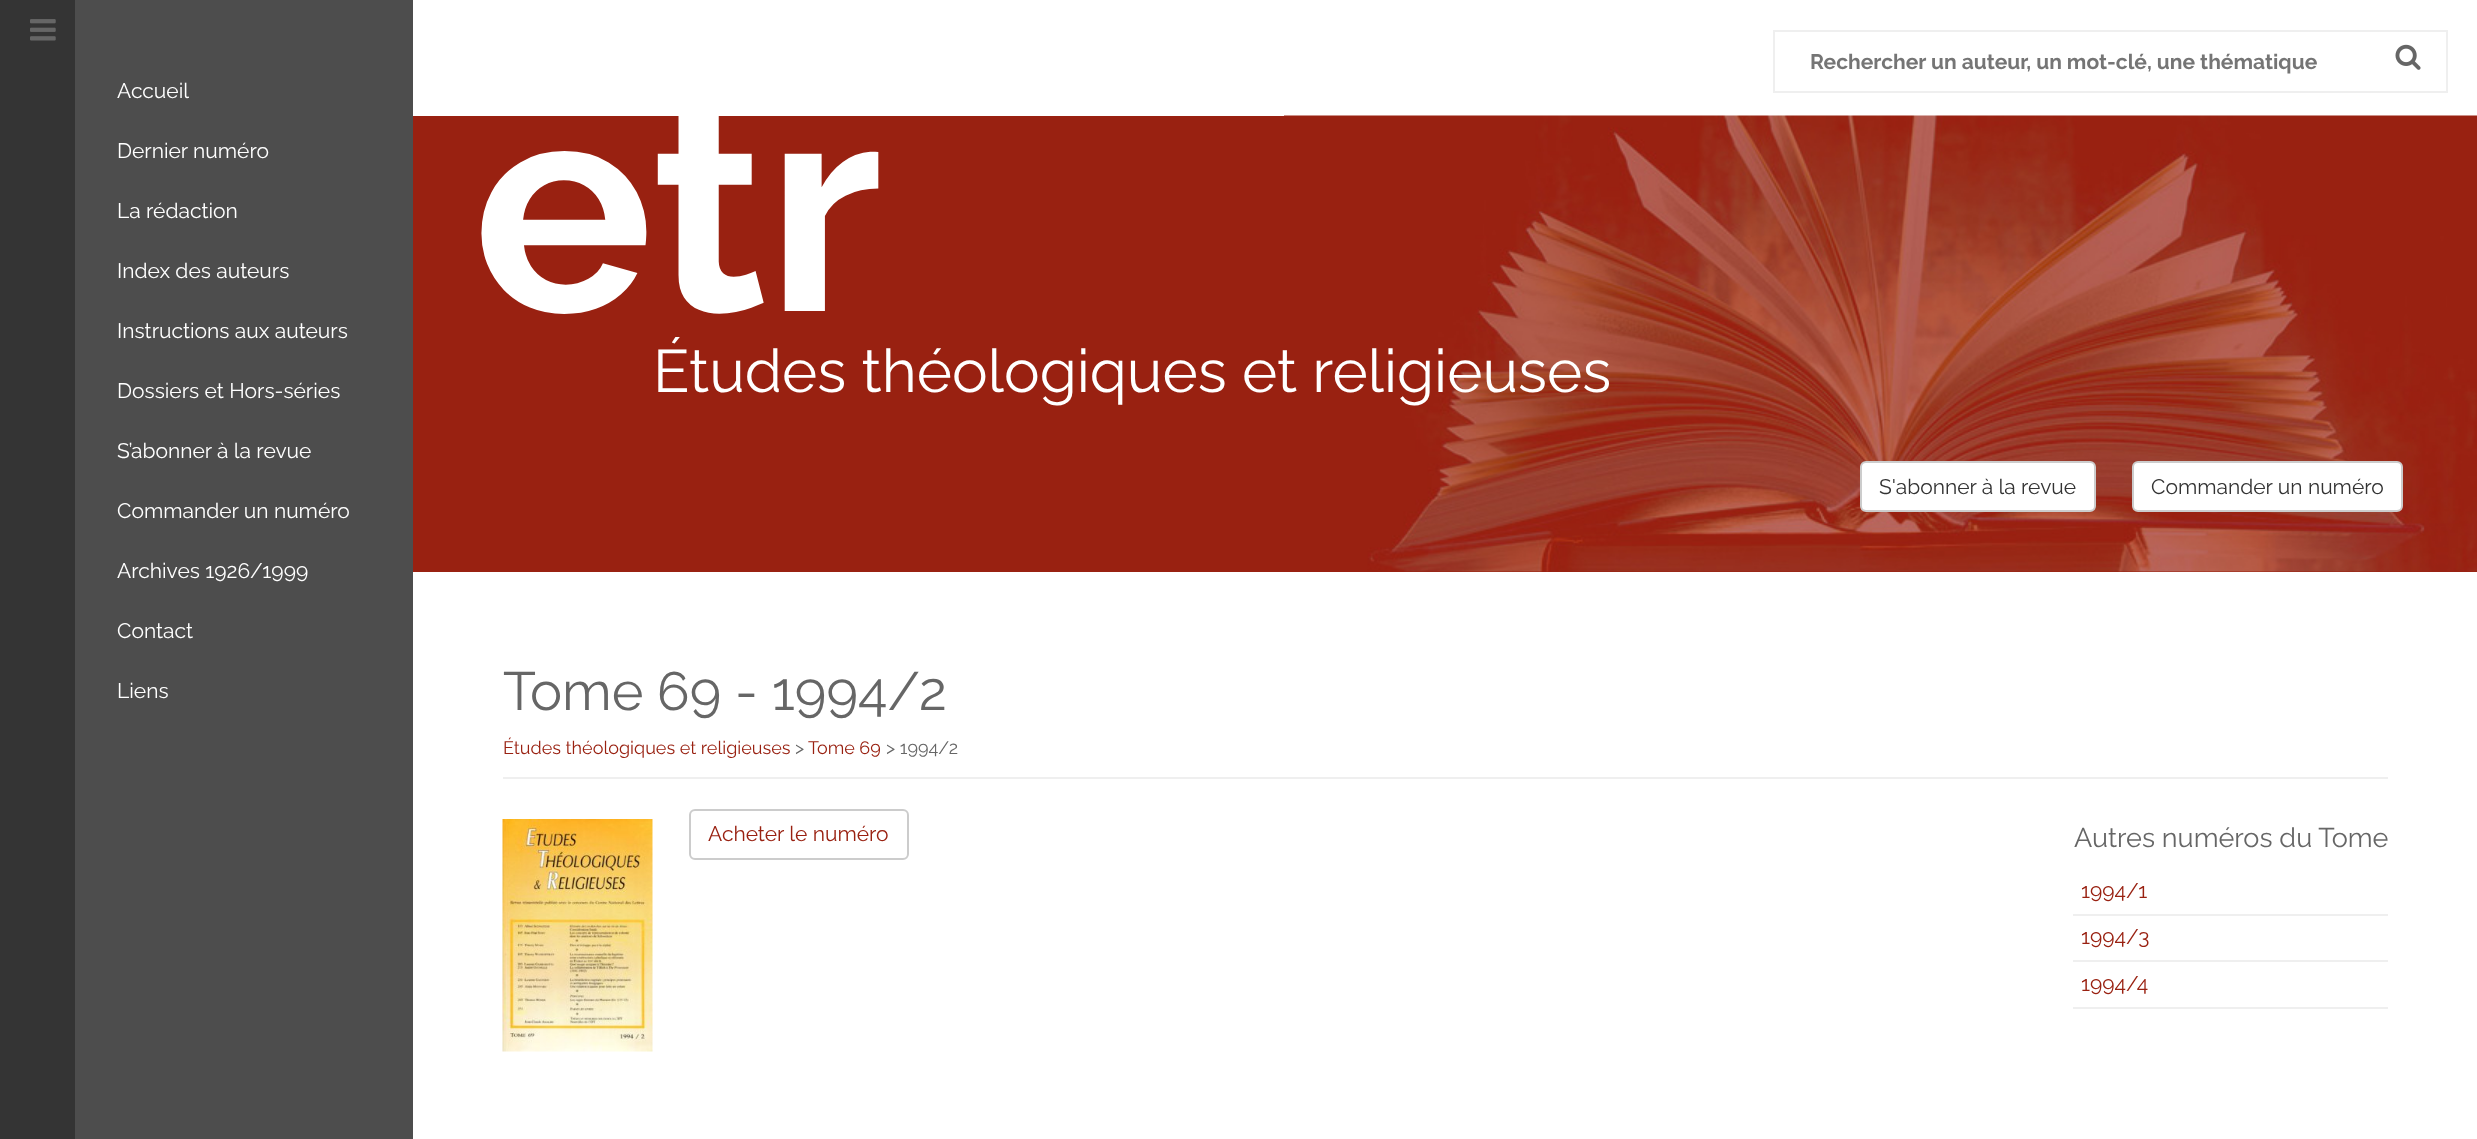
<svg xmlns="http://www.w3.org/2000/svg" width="2477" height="1139">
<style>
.a{font:21px Raleway;fill:#fff}
.b{font:bold 21px Raleway;fill:#757575}
.c{font:bold 300px Raleway;fill:#fff}
.d{font:60px Raleway;fill:#fff}
.e{font:21px Raleway;fill:#333}
.f{font:54px Raleway;fill:#666}
.g{font:18px Raleway;fill:#992111}
.h{font:18px Raleway;fill:#666}
.i{font:21px Raleway;fill:#992111}
.j{font:27px Raleway;fill:#666}
</style>
<rect width="100%" height="100%" fill="#fff"/>
<path fill="#4d4d4d" d="M75 0h338v1139H75z"/>
<path fill="#343434" d="M0 0h75v1139H0z"/>
<image href="1.png" x="30" y="19" width="26" height="22"/>
<path fill="none" stroke="#efefef" stroke-width="2" d="M1774 31h673v61H1774z"/>
<image href="2.png" x="2395" y="44" width="26" height="26"/>
<path fill="#992111" d="M413 116h2064v456H413z"/>
<image href="3.png" x="1284" y="115" width="1193" height="457"/>
<rect fill="#fff" stroke="#ccc" stroke-width="2" x="1861" y="462" width="234" height="49" rx="5"/>
<rect fill="#fff" stroke="#ccc" stroke-width="2" x="2133" y="462" width="269" height="49" rx="5"/>
<path fill="#efefef" d="M503 777h1885v2H503z"/>
<image href="4.png" x="502" y="819" width="151" height="233"/>
<rect fill="none" stroke="#ccc" stroke-width="2" x="690" y="810" width="218" height="49" rx="5"/>
<path fill="#efefef" d="M2073 914h315v2H2073z"/>
<path fill="#efefef" d="M2073 960h315v2H2073z"/>
<path fill="#efefef" d="M2073 1007h315v2H2073z"/>
<text class="a" x="117" y="98">Accueil</text>
<text class="a" x="117" y="158">Dernier numéro</text>
<text class="a" x="117" y="218">La rédaction</text>
<text class="a" x="117" y="278">Index des auteurs</text>
<text class="a" x="117" y="338">Instructions aux auteurs</text>
<text class="a" x="117" y="398">Dossiers et Hors-séries</text>
<text class="a" x="117" y="458">S’abonner à la revue</text>
<text class="a" x="117" y="518">Commander un numéro</text>
<text class="a" x="117" y="578">Archives 1926/1999</text>
<text class="a" x="117" y="638">Contact</text>
<text class="a" x="117" y="698">Liens</text>
<text class="b" x="1810" y="69">Rechercher un auteur, un mot-clé, une thématique</text>
<text class="c" x="473" y="311">etr</text>
<text class="d" x="653" y="392">Études théologiques et religieuses</text>
<text class="e" x="1879" y="494">S'abonner à la revue</text>
<text class="e" x="2151" y="494">Commander un numéro</text>
<text class="f" x="503" y="710">Tome 69 - 1994/2</text>
<text class="g" x="503" y="754">Études théologiques et religieuses</text>
<text class="h" x="795" y="754">&gt;</text>
<text class="g" x="808" y="754">Tome 69</text>
<text class="h" x="886" y="754">&gt; 1994/2</text>
<text class="i" x="708" y="841">Acheter le numéro</text>
<text class="j" x="2074" y="847">Autres numéros du Tome</text>
<text class="i" x="2081" y="898">1994/1</text>
<text class="i" x="2081" y="944">1994/3</text>
<text class="i" x="2081" y="991">1994/4</text>
</svg>
